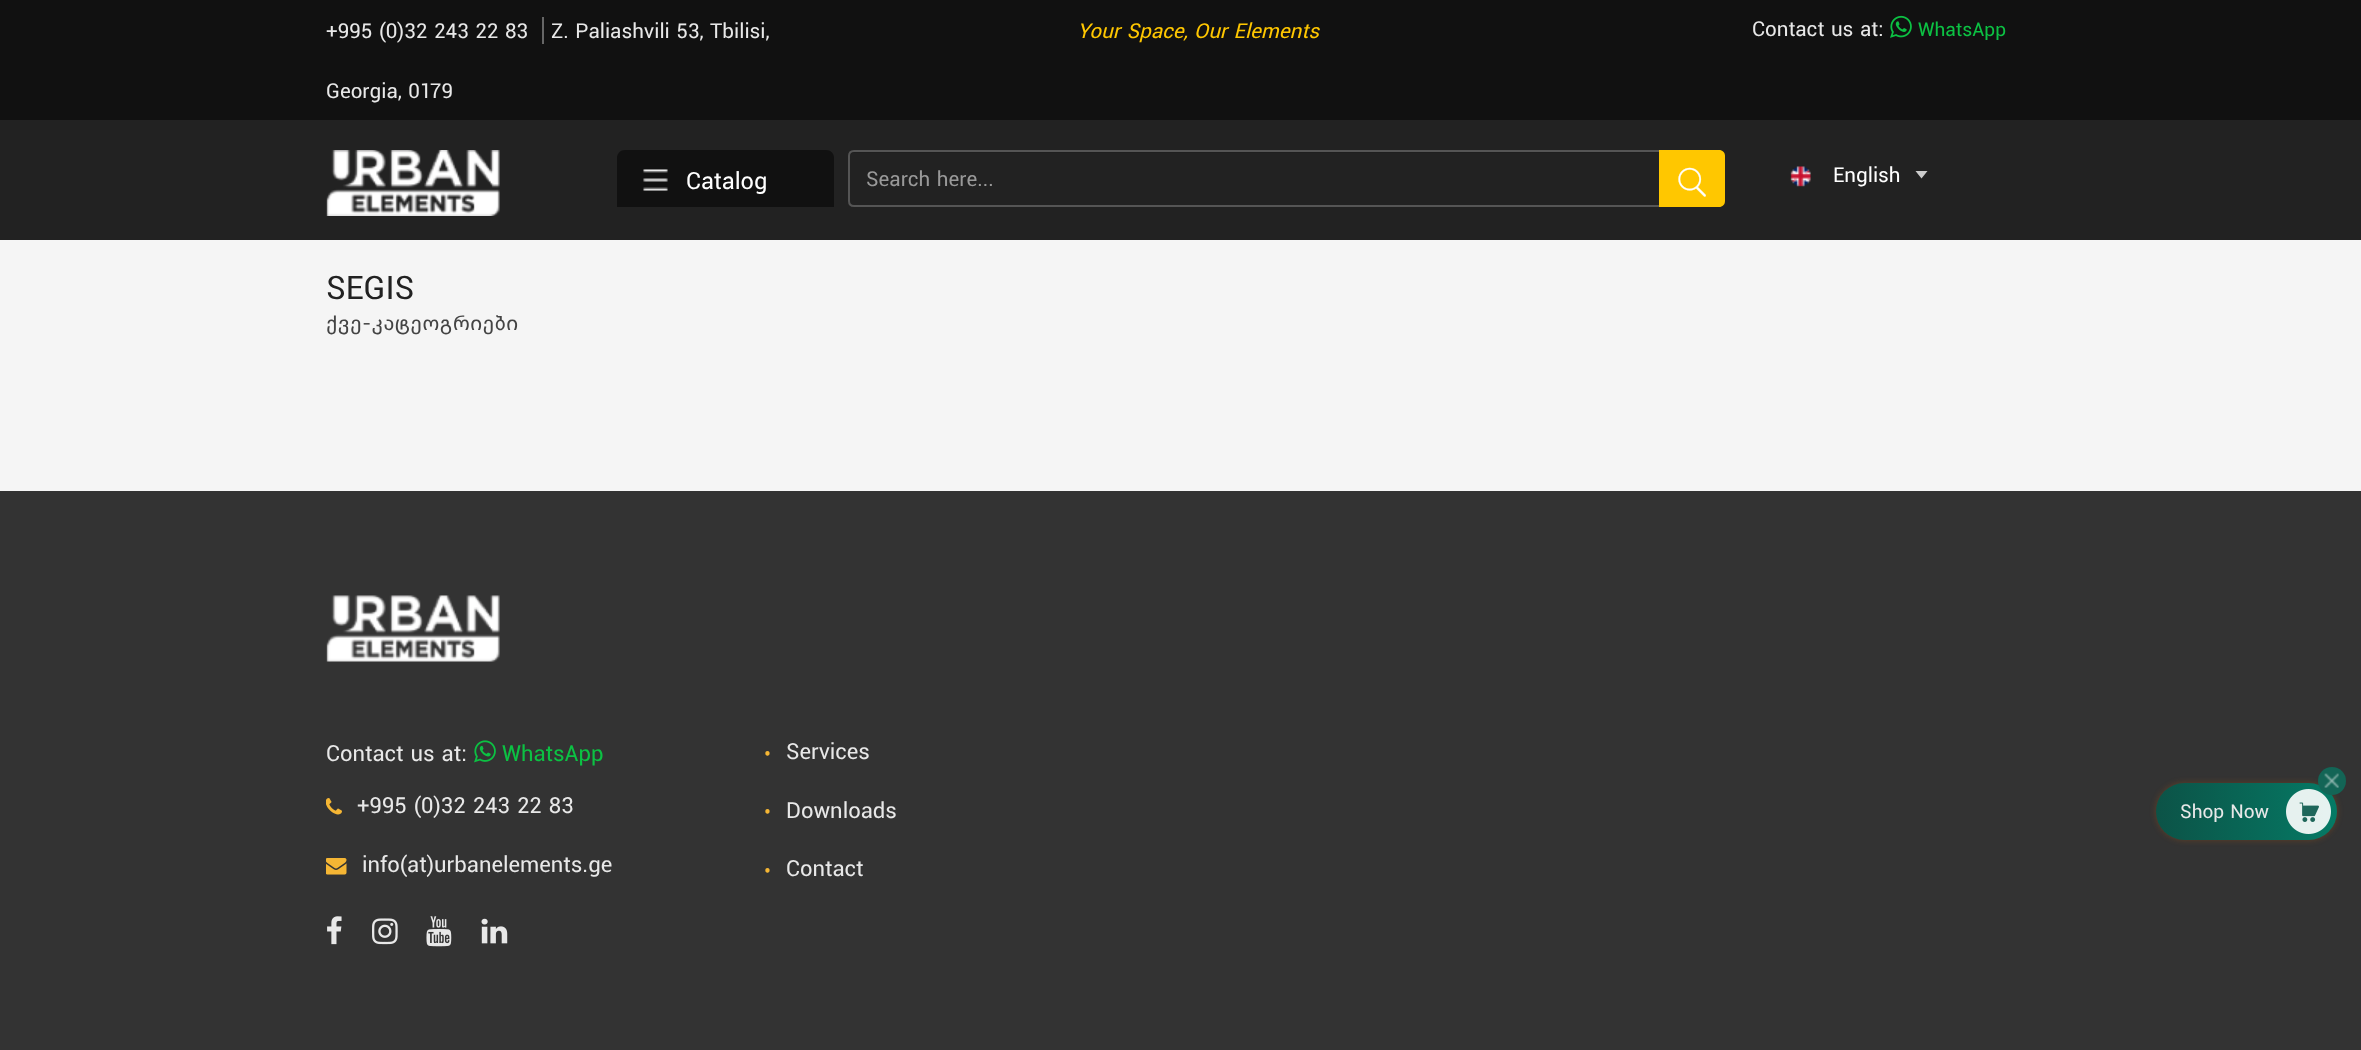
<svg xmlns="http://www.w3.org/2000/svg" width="2361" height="1050">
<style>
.a{font:21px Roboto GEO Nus;fill:#e8e8e8}
.b{font:italic 21px Roboto GEO Nus;fill:#ffc700}
.c{font:19.5px Roboto GEO Nus;fill:#0cc143}
.d{font:24px Roboto GEO Nus;fill:#fff}
.e{font:21px Roboto GEO Nus;fill:#999}
.f{font:21px Roboto GEO Nus;fill:#fff}
.g{font:33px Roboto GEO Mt;fill:#222}
.h{font:21px Roboto GEO Nus;fill:#444}
.i{font:22.5px Roboto GEO Nus;fill:#e8e8e8}
.j{font:22.5px Roboto GEO Nus;fill:#0cc143}
.k{font:21px Roboto GEO Nus;fill:#f5b634}
.l{font:19.5px Roboto GEO Nus;fill:#e8e8e8}
</style>
<defs>
<linearGradient id="g1" gradientUnits="userSpaceOnUse" x1="2156" y1="812" x2="2337" y2="812"><stop offset="0" stop-color="#0c5347"/><stop offset="1" stop-color="#057a65"/></linearGradient>
</defs>
<rect width="100%" height="100%" fill="#f5f5f5"/>
<path fill="#111" d="M0 0h2361v120H0z"/>
<path fill="#666" d="M542 17h2v27H542z"/>
<image href="1.png" x="1890" y="15" width="22" height="23"/>
<path fill="#222" d="M0 120h2361v120H0z"/>
<image href="2.png" x="326" y="150" width="174" height="66"/>
<path fill="#111" d="M625 150h201c4.5 0 8 3.5 8 8v49h-217v-49c0-4.5 3.5-8 8-8z"/>
<image href="3.png" x="643" y="169" width="25" height="22"/>
<path fill="#1f1f1f" d="M854 153h805v-1h-805c-3 0-5 2-5 5v1c0-3 2-5 5-5z"/>
<path fill="none" stroke="#555" stroke-width="2" d="M854 151h806v55h-806c-3 0-5-2-5-5v-45c0-3 2-5 5-5z"/>
<path fill="#ffc700" d="M1659 150h60c3.5 0 6 2.5 6 6v45c0 3.5-2.5 6-6 6h-60z"/>
<image href="4.png" x="1678" y="167" width="28" height="30"/>
<image href="5.png" x="1790" y="166" width="21" height="21"/>
<path fill="#ccc" d="M1921.5 178.5l-6-7.5h12z"/>
<path fill="#333" d="M0 491h2361v559H0z"/>
<image href="6.png" x="326" y="595" width="174" height="67"/>
<image href="7.png" x="474" y="740" width="22" height="23"/>
<image href="8.png" x="326" y="798" width="16" height="17"/>
<image href="9.png" x="326" y="858" width="21" height="17"/>
<image href="10.png" x="327" y="916" width="15" height="29"/>
<image href="11.png" x="372" y="918" width="26" height="27"/>
<image href="12.png" x="426" y="916" width="26" height="31"/>
<image href="13.png" x="481" y="918" width="27" height="26"/>
<rect fill="#eb670540" filter="blur(3px)" x="2156" y="783" width="181" height="57" rx="28.5"/>
<rect fill="url(#g1)" x="2156" y="783" width="181" height="57" rx="28.5"/>
<image href="15.png" x="2286" y="789" width="45" height="45"/>
<circle fill="#136556" cx="2332" cy="781" r="14"/>
<image href="14.png" x="2324" y="773" width="15" height="15"/>
<text class="a" x="326" y="38">+995 (0)32 243 22 83</text>
<text class="a" x="551" y="38">Z. Paliashvili 53, Tbilisi,</text>
<text class="a" x="326" y="98">Georgia, 0179</text>
<text class="b" x="1077" y="38">Your Space, Our Elements</text>
<text class="a" x="1752" y="36">Contact us at:</text>
<text class="c" x="1918" y="36">WhatsApp</text>
<text class="d" x="686" y="189">Catalog</text>
<text class="e" x="866" y="186">Search here...</text>
<text class="f" x="1833" y="182">English</text>
<text class="g" x="326" y="299">SEGIS</text>
<text class="h" x="326" y="330">ქვე-კატეოგრიები</text>
<text class="i" x="326" y="761">Contact us at:</text>
<text class="j" x="502" y="761">WhatsApp</text>
<text class="i" x="357" y="813">+995 (0)32 243 22 83</text>
<text class="i" x="362" y="872">info(at)urbanelements.ge</text>
<text class="k" x="764" y="761">•</text>
<text class="i" x="786" y="759">Services</text>
<text class="k" x="764" y="819">•</text>
<text class="i" x="786" y="818">Downloads</text>
<text class="k" x="764" y="878">•</text>
<text class="i" x="786" y="876">Contact</text>
<text class="l" x="2180" y="818">Shop Now</text>
</svg>
